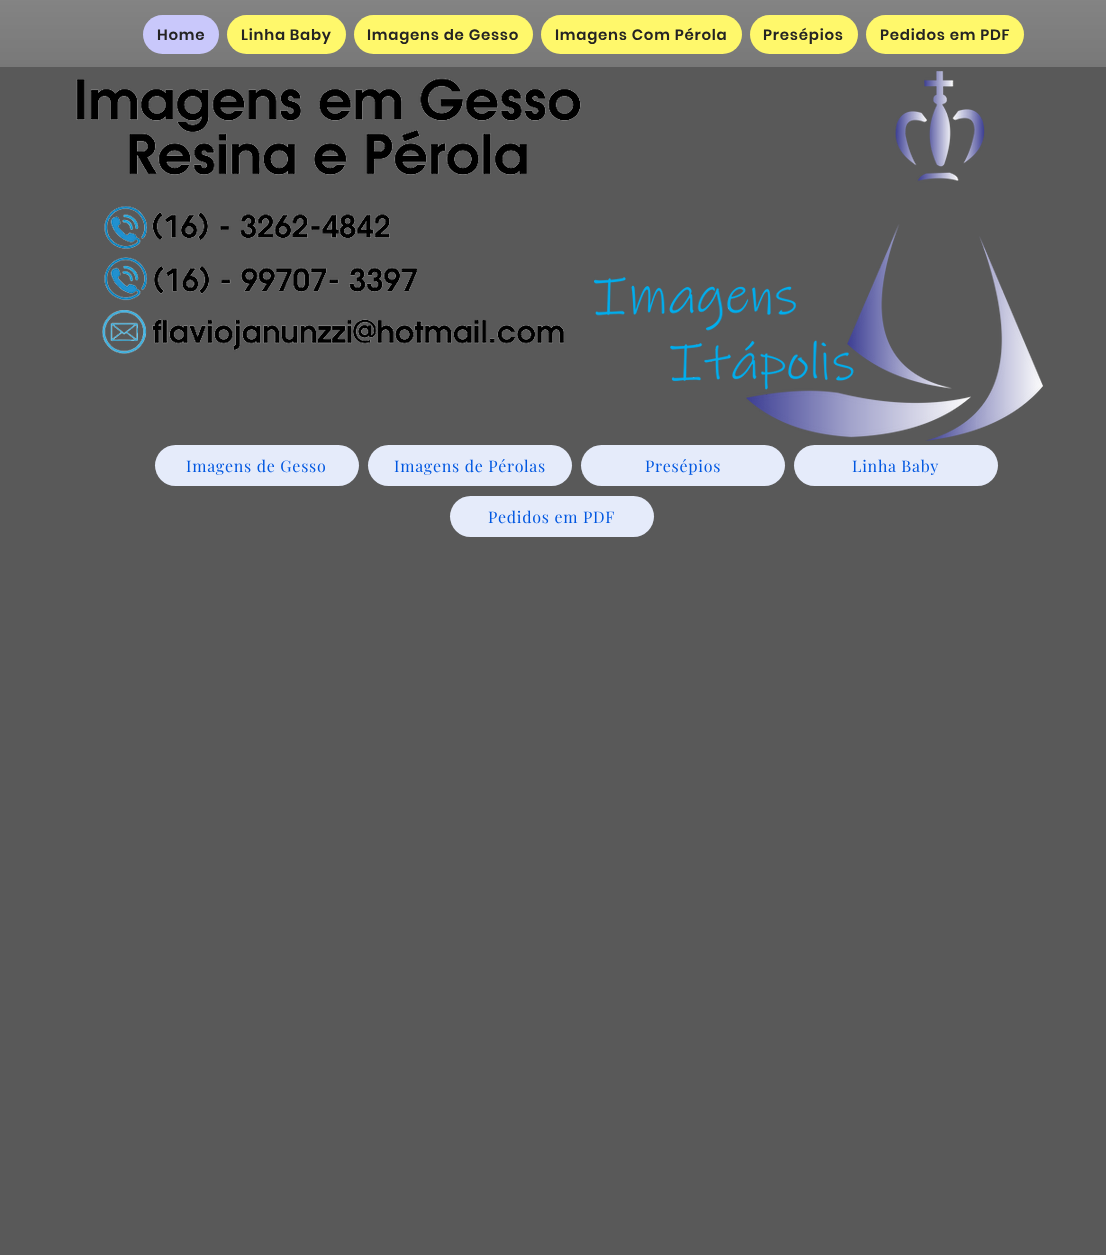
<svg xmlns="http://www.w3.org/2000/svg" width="1106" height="1255">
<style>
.a{font:600 15px Poppins;letter-spacing:0.75px;fill:#242323}
.b{font:16px Playfair Display;letter-spacing:0.75px;fill:#0057e1}
</style>
<rect width="100%" height="100%" fill="#595959"/>
<image href="1.png" x="0" y="0" width="1106" height="67"/>
<rect fill="#c9c8fb" x="143" y="15" width="76" height="39" rx="19.5"/>
<rect fill="#fff86b" x="227" y="15" width="119" height="39" rx="19.5"/>
<rect fill="#fff86b" x="354" y="15" width="179" height="39" rx="19.5"/>
<rect fill="#fff86b" x="541" y="15" width="201" height="39" rx="19.5"/>
<rect fill="#fff86b" x="750" y="15" width="108" height="39" rx="19.5"/>
<rect fill="#fff86b" x="866" y="15" width="158" height="39" rx="19.5"/>
<image href="2.png" x="76" y="78" width="505" height="276"/>
<image href="3.png" x="594" y="71" width="449" height="370"/>
<rect fill="#e5ebfa" x="155" y="445" width="204" height="41" rx="20.5"/>
<rect fill="#e5ebfa" x="368" y="445" width="204" height="41" rx="20.5"/>
<rect fill="#e5ebfa" x="581" y="445" width="204" height="41" rx="20.5"/>
<rect fill="#e5ebfa" x="794" y="445" width="204" height="41" rx="20.5"/>
<rect fill="#e5ebfa" x="450" y="496" width="204" height="41" rx="20.5"/>
<text class="a" x="157" y="40">Home</text>
<text class="a" x="241" y="40">Linha Baby</text>
<text class="a" x="367" y="40">Imagens de Gesso</text>
<text class="a" x="555" y="40">Imagens Com Pérola</text>
<text class="a" x="763" y="40">Presépios</text>
<text class="a" x="880" y="40">Pedidos em PDF</text>
<text class="b" x="186" y="472">Imagens de Gesso</text>
<text class="b" x="394" y="472">Imagens de Pérolas</text>
<text class="b" x="645" y="472">Presépios</text>
<text class="b" x="852" y="472">Linha Baby</text>
<text class="b" x="488" y="523">Pedidos em PDF</text>
</svg>
